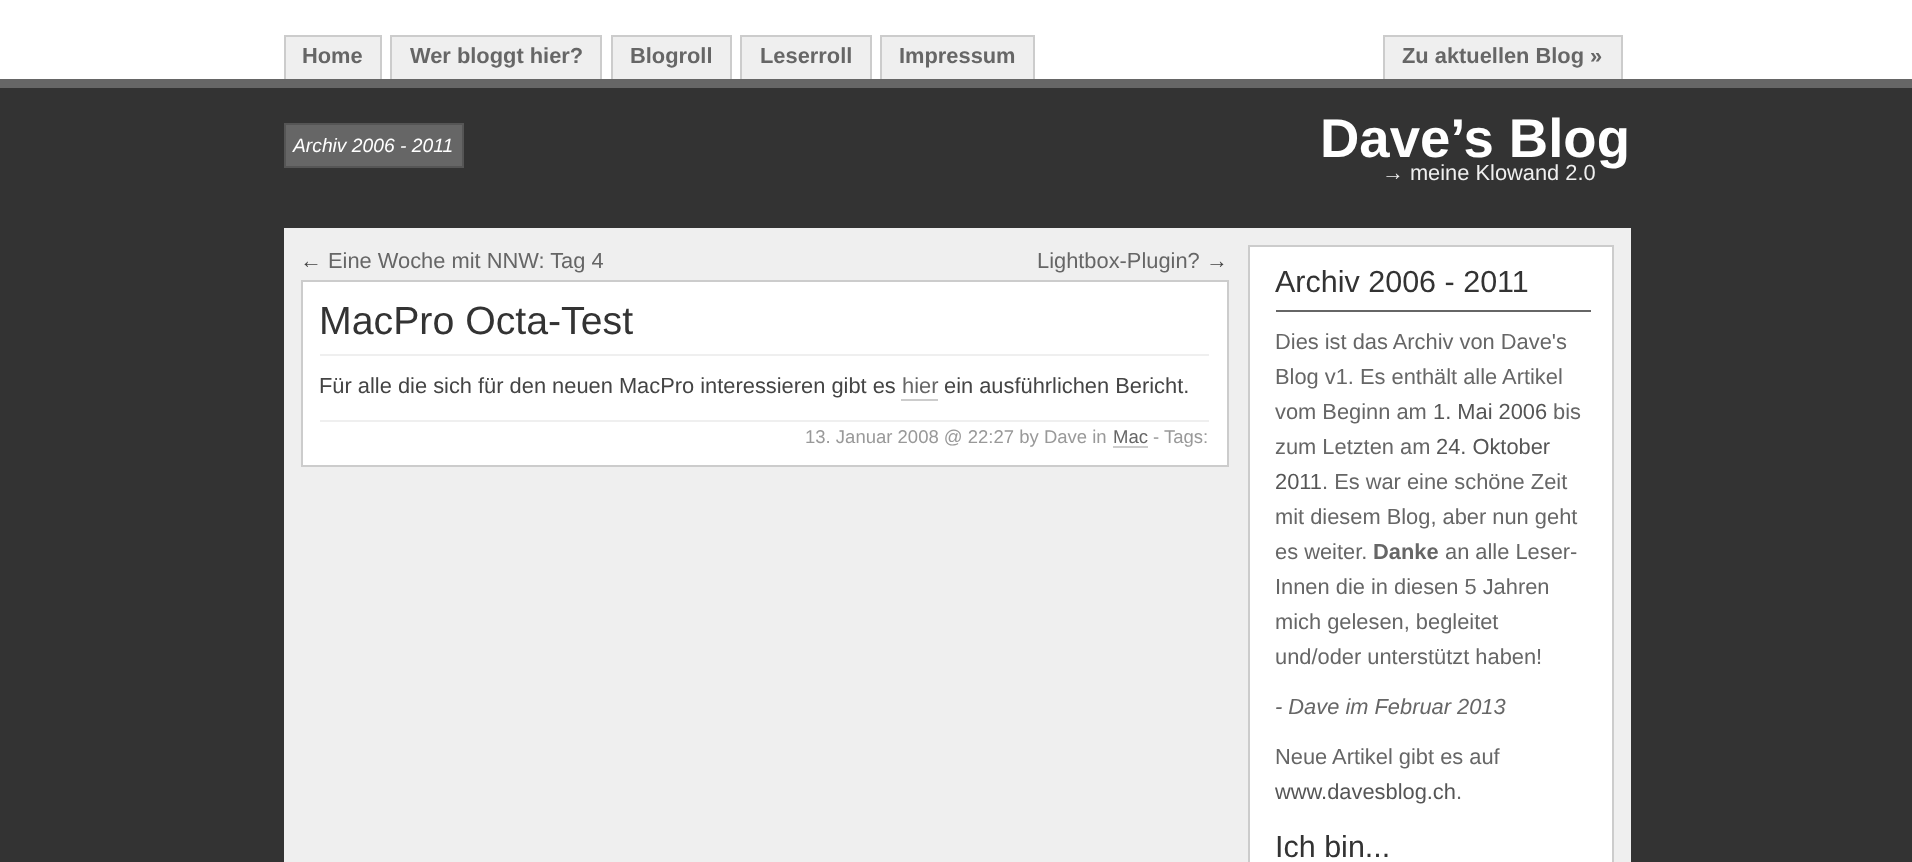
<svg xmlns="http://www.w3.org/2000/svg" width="1912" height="862">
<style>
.a{font:bold 21.85px Liberation Sans;fill:#666}
.b{font:italic 19.25px Liberation Sans;fill:#fff}
.c{font:bold 54.5px Liberation Sans;fill:#fff}
.d{font:21.85px Liberation Sans;fill:#efefef}
.e{font:21.85px Liberation Sans;fill:#444}
.f{font:21.85px Liberation Sans;fill:#666}
.g{font:39.25px Liberation Sans;fill:#333}
.h{font:18.5px Liberation Sans;fill:#999}
.i{font:18.5px Liberation Sans;fill:#666}
.j{font:30.5px Liberation Sans;fill:#333}
.k{font:21.85px Liberation Sans;fill:#555}
.l{font:italic 21.85px Liberation Sans;fill:#666}
</style>
<rect width="100%" height="100%" fill="#333"/>
<path fill="#fff" d="M0 0h1912v79H0z"/>
<path fill="#666" d="M0 79h1912v9H0z"/>
<path fill="#efefef" d="M286 37h94v42H286z"/>
<path fill="#ccc" d="M284 35h98v2H284z"/>
<path fill="#ccc" d="M380 35h2v44H380z"/>
<path fill="#ccc" d="M284 35h2v44H284z"/>
<path fill="#efefef" d="M392 37h208v42H392z"/>
<path fill="#ccc" d="M390 35h212v2H390z"/>
<path fill="#ccc" d="M600 35h2v44H600z"/>
<path fill="#ccc" d="M390 35h2v44H390z"/>
<path fill="#efefef" d="M613 37h117v42H613z"/>
<path fill="#ccc" d="M611 35h121v2H611z"/>
<path fill="#ccc" d="M730 35h2v44H730z"/>
<path fill="#ccc" d="M611 35h2v44H611z"/>
<path fill="#efefef" d="M742 37h128v42H742z"/>
<path fill="#ccc" d="M740 35h132v2H740z"/>
<path fill="#ccc" d="M870 35h2v44H870z"/>
<path fill="#ccc" d="M740 35h2v44H740z"/>
<path fill="#efefef" d="M882 37h151v42H882z"/>
<path fill="#ccc" d="M880 35h154v2H880z"/>
<path fill="#ccc" d="M1033 35h2v44H1033z"/>
<path fill="#ccc" d="M880 35h2v44H880z"/>
<path fill="#efefef" d="M1385 37h236v42H1385z"/>
<path fill="#ccc" d="M1383 35h239v2H1383z"/>
<path fill="#ccc" d="M1621 35h2v44H1621z"/>
<path fill="#ccc" d="M1383 35h2v44H1383z"/>
<path fill="#666" stroke="#555" stroke-width="2" d="M285 124h178v43H285z"/>
<path fill="#efefef" d="M284 228h1347v634H284z"/>
<path fill="#fff" stroke="#ccc" stroke-width="2" d="M302 281h926v185H302z"/>
<path fill="#efefef" d="M320 354h889v2H320z"/>
<path fill="#ccc" d="M901 399h37v2H901z"/>
<path fill="#efefef" d="M320 420h889v2H320z"/>
<path fill="#ccc" d="M1113 446h35v2H1113z"/>
<path fill="#fff" stroke="#ccc" stroke-width="2" d="M1249 246h364v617H1249z"/>
<path fill="#666" d="M1276 310h315v2H1276z"/>
<text class="a" x="302" y="63">Home</text>
<text class="a" x="410" y="63">Wer bloggt hier?</text>
<text class="a" x="630" y="63">Blogroll</text>
<text class="a" x="760" y="63">Leserroll</text>
<text class="a" x="899" y="63">Impressum</text>
<text class="a" x="1402" y="63">Zu aktuellen Blog »</text>
<text class="b" x="293" y="152">Archiv 2006 - 2011</text>
<text class="c" x="1320" y="157">Dave’s Blog</text>
<text class="d" x="1382" y="180">→ meine Klowand 2.0</text>
<text class="e" x="300" y="268">←</text>
<text class="f" x="328" y="268">Eine Woche mit NNW: Tag 4</text>
<text class="f" x="1037" y="268">Lightbox-Plugin?</text>
<text class="e" x="1206" y="268">→</text>
<text class="g" x="319" y="334">MacPro Octa-Test</text>
<text class="e" x="319" y="393">Für alle die sich für den neuen MacPro interessieren gibt es</text>
<text class="f" x="902" y="393">hier</text>
<text class="e" x="944" y="393">ein ausführlichen Bericht.</text>
<text class="h" x="805" y="443">13. Januar 2008 @ 22:27 by Dave in</text>
<text class="i" x="1113" y="443">Mac</text>
<text class="h" x="1153" y="443">-</text>
<text class="h" x="1164" y="443">Tags:</text>
<text class="j" x="1275" y="292">Archiv 2006 - 2011</text>
<text class="f" x="1275" y="349">Dies ist das Archiv von Dave's</text>
<text class="f" x="1275" y="384">Blog v1. Es enthält alle Artikel</text>
<text class="f" x="1275" y="419">vom Beginn am</text>
<text class="k" x="1433" y="419">1. Mai 2006</text>
<text class="f" x="1553" y="419">bis</text>
<text class="f" x="1275" y="454">zum Letzten am</text>
<text class="k" x="1436" y="454">24. Oktober</text>
<text class="k" x="1275" y="489">2011</text>
<text class="f" x="1322" y="489">. Es war eine schöne Zeit</text>
<text class="f" x="1275" y="524">mit diesem Blog, aber nun geht</text>
<text class="f" x="1275" y="559">es weiter.</text>
<text class="a" x="1373" y="559">Danke</text>
<text class="f" x="1445" y="559">an alle Leser-</text>
<text class="f" x="1275" y="594">Innen die in diesen 5 Jahren</text>
<text class="f" x="1275" y="629">mich gelesen, begleitet</text>
<text class="f" x="1275" y="664">und/oder unterstützt haben!</text>
<text class="l" x="1275" y="714">- Dave im Februar 2013</text>
<text class="f" x="1275" y="764">Neue Artikel gibt es auf</text>
<text class="k" x="1275" y="799">www.davesblog.ch</text>
<text class="f" x="1456" y="799">.</text>
<text class="j" x="1275" y="857">Ich bin...</text>
</svg>
